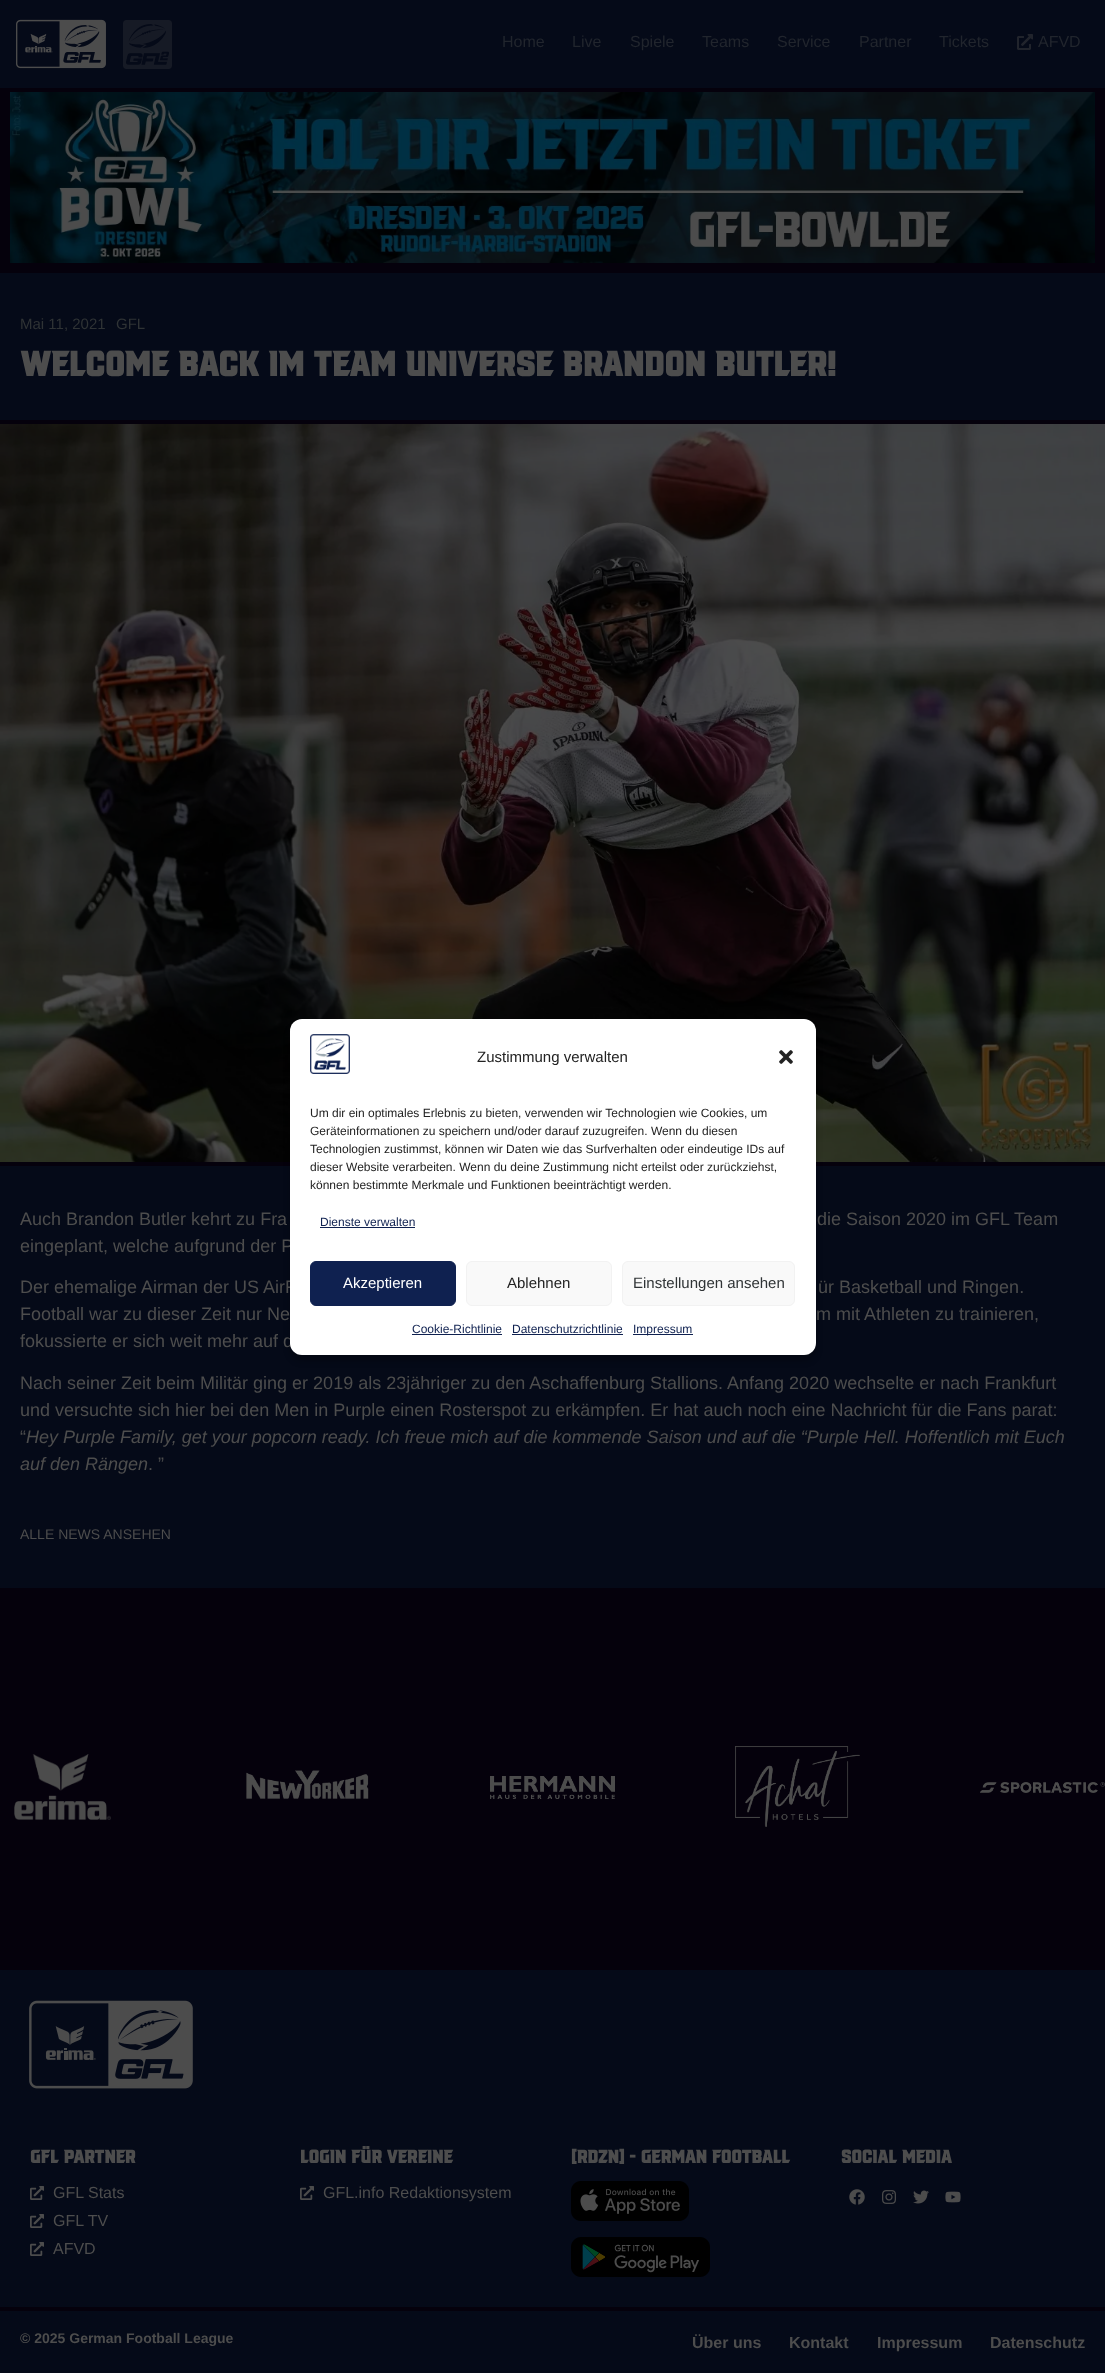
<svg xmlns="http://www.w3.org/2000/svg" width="1105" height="2373">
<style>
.a{font:16px Liberation Sans;fill:#21252d}
.b{font:15px Liberation Sans;fill:#2f3335}
.c{font:bold 38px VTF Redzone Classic;fill:#4d4d4d}
.d{font:18px Liberation Sans;fill:#4d4d4d}
.e{font:italic 18px Liberation Sans;fill:#4d4d4d}
.f{font:14px Liberation Sans;fill:#4d4d4d}
.g{font:15px Liberation Sans;fill:#222}
.h{font:12px Liberation Sans;fill:#222}
.i{font:12px Liberation Sans;fill:#0f2150}
.j{font:15px Liberation Sans;fill:#fff}
.k{font:bold 20px VTF Redzone Classic;fill:#4d4d4d}
.l{font:16px Liberation Sans;fill:#4d4d4d}
.m{font:bold 14px Liberation Sans;fill:#4d4d4d}
.n{font:bold 16px Liberation Sans;fill:#4d4d4d}
</style>
<rect width="100%" height="100%" fill="#05010c"/>
<path fill="#050a18" d="M0 0h1105v88H0z"/>
<image href="1.png" x="16" y="19" width="90" height="50"/>
<image href="2.png" x="123" y="20" width="49" height="49"/>
<image href="3.png" x="1017" y="34" width="16" height="16"/>
<image href="4.png" x="10" y="92" width="1085" height="171"/>
<path fill="#050a18" d="M0 273h1105v147H0z"/>
<image href="5.png" x="0" y="424" width="1105" height="738"/>
<path fill="#050a18" d="M0 1166h1105v422H0z"/>
<rect fill="#0000003b" filter="blur(3px)" x="290" y="1025" width="526" height="336" rx="12"/>
<image href="8.png" x="14" y="1754" width="97" height="66"/>
<image href="9.png" x="246" y="1770" width="123" height="29"/>
<image href="10.png" x="490" y="1776" width="125" height="23"/>
<image href="11.png" x="735" y="1746" width="125" height="81"/>
<image href="12.png" x="980" y="1782" width="125" height="11"/>
<path fill="#050a18" d="M0 1970h1105v337H0z"/>
<image href="13.png" x="29" y="2000" width="164" height="89"/>
<image href="14.png" x="30" y="2186" width="14" height="14"/>
<image href="14.png" x="30" y="2214" width="14" height="14"/>
<image href="14.png" x="30" y="2242" width="14" height="14"/>
<image href="14.png" x="300" y="2186" width="14" height="14"/>
<image href="15.png" x="571" y="2181" width="118" height="40"/>
<image href="16.png" x="571" y="2237" width="139" height="40"/>
<image href="17.png" x="849" y="2189" width="16" height="16"/>
<image href="18.png" x="882" y="2190" width="14" height="14"/>
<image href="19.png" x="913" y="2190" width="16" height="14"/>
<image href="20.png" x="945" y="2191" width="16" height="12"/>
<path fill="#050a18" d="M0 2311h1105v62H0z"/>
<text class="a" x="502" y="47">Home</text>
<text class="a" x="572" y="47">Live</text>
<text class="a" x="630" y="47">Spiele</text>
<text class="a" x="702" y="47">Teams</text>
<text class="a" x="777" y="47">Service</text>
<text class="a" x="859" y="47">Partner</text>
<text class="a" x="939" y="47">Tickets</text>
<text class="a" x="1038" y="47">AFVD</text>
<text class="b" x="20" y="329">Mai 11, 2021</text>
<text class="b" x="116" y="329">GFL</text>
<text class="c" x="20" y="376">Welcome back im Team Universe Brandon Butler!</text>
<text class="d" x="20" y="1225">Auch Brandon Butler kehrt zu Fra</text>
<text class="d" x="817" y="1225">die Saison 2020 im GFL Team</text>
<text class="d" x="20" y="1252">eingeplant, welche aufgrund der P</text>
<text class="d" x="20" y="1293">Der ehemalige Airman der US AirF</text>
<text class="d" x="818" y="1293">ür Basketball und Ringen.</text>
<text class="d" x="20" y="1320">Football war zu dieser Zeit nur Ne</text>
<text class="d" x="816" y="1320">m mit Athleten zu trainieren,</text>
<text class="d" x="20" y="1347">fokussierte er sich weit mehr auf d</text>
<text class="d" x="20" y="1389">Nach seiner Zeit beim Militär ging er 2019 als 23jähriger zu den Aschaffenburg Stallions. Anfang 2020 wechselte er nach Frankfurt</text>
<text class="d" x="20" y="1416">und versuchte sich hier bei den Men in Purple einen Rosterspot zu erkämpfen. Er hat auch noch eine Nachricht für die Fans parat:</text>
<text class="d" x="20" y="1443">“</text>
<text class="e" x="26" y="1443">Hey Purple Family, get your popcorn ready. Ich freue mich auf die kommende Saison und auf die “Purple Hell. Hoffentlich mit Euch</text>
<text class="e" x="20" y="1470">auf den Rängen</text>
<text class="d" x="148" y="1470">. ”</text>
<text class="f" x="20" y="1539">ALLE NEWS ANSEHEN</text>
<rect fill="#fff" x="290" y="1019" width="526" height="336" rx="12"/>
<image href="6.png" x="310" y="1034" width="40" height="40"/>
<text class="g" x="477" y="1062">Zustimmung verwalten</text>
<image href="7.png" x="779" y="1050" width="14" height="14"/>
<text class="h" x="310" y="1117">Um dir ein optimales Erlebnis zu bieten, verwenden wir Technologien wie Cookies, um</text>
<text class="h" x="310" y="1135">Geräteinformationen zu speichern und/oder darauf zuzugreifen. Wenn du diesen</text>
<text class="h" x="310" y="1153">Technologien zustimmst, können wir Daten wie das Surfverhalten oder eindeutige IDs auf</text>
<text class="h" x="310" y="1171">dieser Website verarbeiten. Wenn du deine Zustimmung nicht erteilst oder zurückziehst,</text>
<text class="h" x="310" y="1189">können bestimmte Merkmale und Funktionen beeinträchtigt werden.</text>
<text class="i" x="320" y="1226">Dienste verwalten</text>
<path fill="#0f2150" d="M320 1227h95v1H320z"/>
<rect fill="#0f2150" stroke="#0f2150" x="310.5" y="1261.5" width="145" height="44" rx="5.5"/>
<text class="j" x="343" y="1288">Akzeptieren</text>
<rect fill="#f9f9f9" stroke="#f2f2f2" x="466.5" y="1261.5" width="145" height="44" rx="5.5"/>
<text class="g" x="507" y="1288">Ablehnen</text>
<rect fill="#f9f9f9" stroke="#f2f2f2" x="622.5" y="1261.5" width="172" height="44" rx="5.5"/>
<text class="b" x="633" y="1288">Einstellungen ansehen</text>
<text class="i" x="412" y="1333">Cookie-Richtlinie</text>
<path fill="#0f2150" d="M412 1334h90v1H412z"/>
<text class="i" x="512" y="1333">Datenschutzrichtlinie</text>
<path fill="#0f2150" d="M512 1334h111v1H512z"/>
<path fill="#0f2150" d="M633 1334h60v1H633z"/>
<text class="i" x="633" y="1333">Impressum</text>
<text class="k" x="30" y="2163">GFL Partner</text>
<text class="l" x="53" y="2198">GFL Stats</text>
<text class="l" x="53" y="2226">GFL TV</text>
<text class="l" x="53" y="2254">AFVD</text>
<text class="k" x="300" y="2163">Login für Vereine</text>
<text class="l" x="323" y="2198">GFL.info Redaktionsystem</text>
<text class="k" x="571" y="2163">[RDZN] - German Football</text>
<text class="k" x="841" y="2163">Social Media</text>
<text class="m" x="20" y="2343">© 2025 German Football League</text>
<text class="n" x="692" y="2348">Über uns</text>
<text class="n" x="789" y="2348">Kontakt</text>
<text class="n" x="877" y="2348">Impressum</text>
<text class="n" x="990" y="2348">Datenschutz</text>
</svg>
